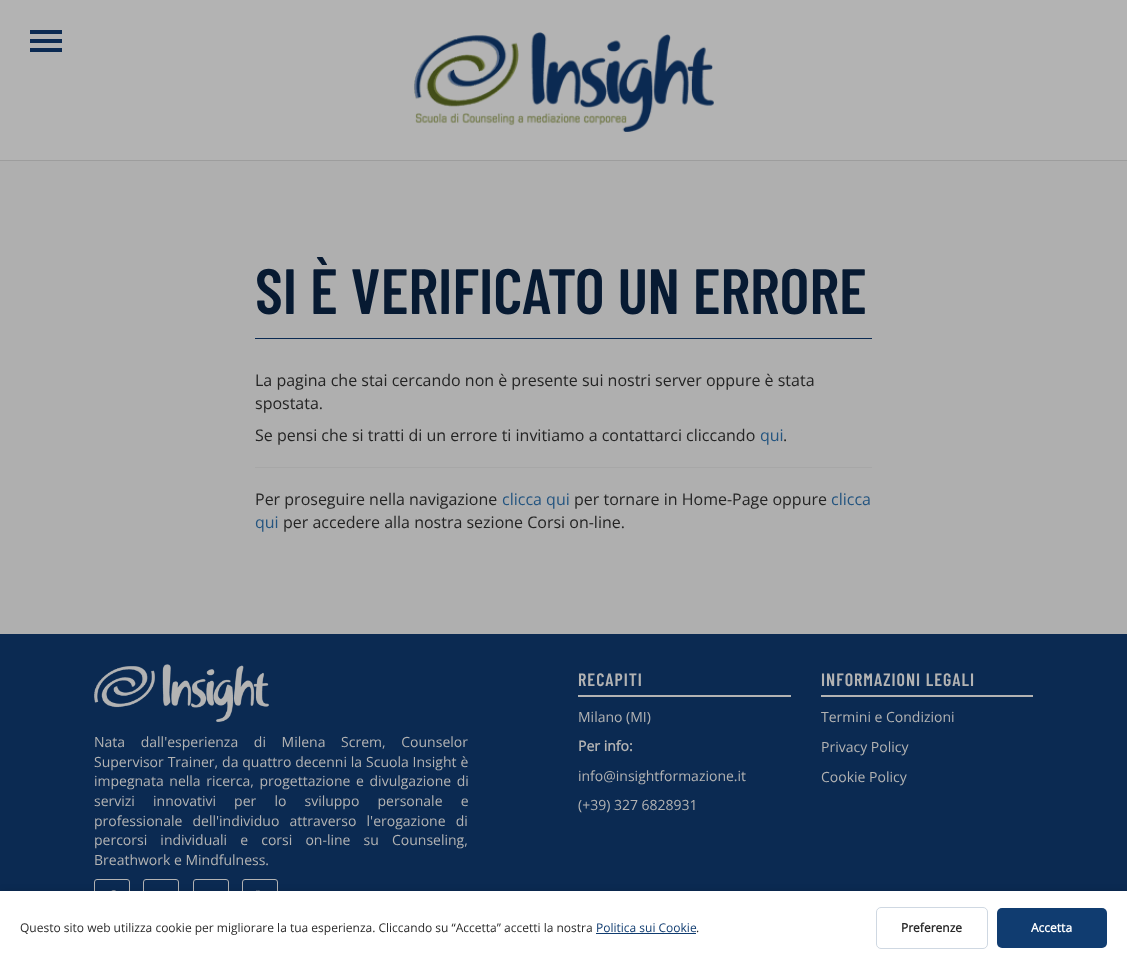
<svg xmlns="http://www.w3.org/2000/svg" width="1127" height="965">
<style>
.a{font:600 64px Barlow Condensed;fill:#071a32}
.b{font:16px Open Sans;fill:#242424}
.c{font:16px Open Sans;fill:#245580}
.d{font:14px Open Sans;fill:#b3b3b3}
.e{font:600 18px Barlow Condensed;letter-spacing:1px;fill:#b3b3b3}
.f{font:bold 14px Open Sans;fill:#b3b3b3}
.g{font:12px Open Sans;fill:#2a2a2a}
.h{font:12px Open Sans;fill:#103c70}
.i{font:bold 12px Open Sans;fill:#2a2a2a}
.j{font:bold 12px Open Sans;fill:#fff}
</style>
<rect width="100%" height="100%" fill="#b3b3b3"/>
<path fill="#0b2a52" d="M30 30h32v4H30z"/>
<path fill="#0b2a52" d="M30 39h32v4H30z"/>
<path fill="#0b2a52" d="M30 48h32v4H30z"/>
<image href="1.png" x="414" y="32" width="300" height="100"/>
<path fill="#afafaf" d="M0 161h1127v473H0z"/>
<path fill="#9d9d9d" d="M0 160h1127v1H0z"/>
<path fill="#0b2a52" d="M255 338h617v1H255z"/>
<path fill="#a7a7a7" d="M255 467h617v1H255z"/>
<path fill="#0b2a52" d="M0 634h1127v257H0z"/>
<image href="2.png" x="94" y="664" width="175" height="58"/>
<rect fill="none" stroke="#b3b3b3" x="94.5" y="879.5" width="35" height="35" rx="2.5"/>
<image href="3.png" x="111" y="890" width="5" height="1"/>
<rect fill="none" stroke="#b3b3b3" x="143.5" y="879.5" width="35" height="35" rx="2.5"/>
<rect fill="none" stroke="#b3b3b3" x="193.5" y="879.5" width="35" height="35" rx="2.5"/>
<rect fill="none" stroke="#b3b3b3" x="242.5" y="879.5" width="35" height="35" rx="2.5"/>
<image href="4.png" x="256" y="890" width="4" height="1"/>
<path fill="#b3b3b3" d="M578 695h213v2H578z"/>
<path fill="#b3b3b3" d="M821 695h212v2H821z"/>
<path fill="#00000033" filter="blur(4px)" d="M0 893h1127v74H0z"/>
<path fill="#fff" d="M0 891h1127v74H0z"/>
<path fill="#103c70" d="M596 933h100v1H596z"/>
<rect fill="none" stroke="#cfd8e2" x="876.5" y="907.5" width="111" height="41" rx="4.5"/>
<rect fill="#103c70" x="997" y="908" width="110" height="40" rx="5"/>
<text class="a" x="255" y="314">SI È VERIFICATO UN ERRORE</text>
<text class="b" x="255" y="386">La pagina che stai cercando non è presente sui nostri server oppure è stata</text>
<text class="b" x="255" y="409">spostata.</text>
<text class="b" x="255" y="441">Se pensi che si tratti di un errore ti invitiamo a contattarci cliccando</text>
<text class="c" x="760" y="441">qui</text>
<text class="b" x="783" y="441">.</text>
<text class="b" x="255" y="505">Per proseguire nella navigazione</text>
<text class="c" x="502" y="505">clicca qui</text>
<text class="b" x="574" y="505">per tornare in Home-Page oppure</text>
<text class="c" x="831" y="505">clicca</text>
<text class="c" x="255" y="528">qui</text>
<text class="b" x="283" y="528">per accedere alla nostra sezione Corsi on-line.</text>
<text class="d" x="94" y="747" word-spacing="12">Nata dall'esperienza di Milena Screm, Counselor</text>
<text class="d" x="94" y="767" word-spacing="0.25">Supervisor Trainer, da quattro decenni la Scuola Insight è</text>
<text class="d" x="94" y="786" word-spacing="2">impegnata nella ricerca, progettazione e divulgazione di</text>
<text class="d" x="94" y="806" word-spacing="14.5">servizi innovativi per lo sviluppo personale e</text>
<text class="d" x="94" y="826" word-spacing="6.5">professionale dell'individuo attraverso l'erogazione di</text>
<text class="d" x="94" y="845" word-spacing="9.5">percorsi individuali e corsi on-line su Counseling,</text>
<text class="d" x="94" y="865">Breathwork e Mindfulness.</text>
<text class="e" x="578" y="686">RECAPITI</text>
<text class="d" x="578" y="722">Milano (MI)</text>
<text class="f" x="578" y="751">Per info:</text>
<text class="d" x="578" y="781">info@insightformazione.it</text>
<text class="d" x="578" y="810">(+39) 327 6828931</text>
<text class="e" x="821" y="686">INFORMAZIONI LEGALI</text>
<text class="d" x="821" y="722">Termini e Condizioni</text>
<text class="d" x="821" y="752">Privacy Policy</text>
<text class="d" x="821" y="782">Cookie Policy</text>
<text class="g" x="20" y="932">Questo sito web utilizza cookie per migliorare la tua esperienza. Cliccando su “Accetta” accetti la nostra</text>
<text class="h" x="596" y="932">Politica sui Cookie</text>
<text class="g" x="696" y="932">.</text>
<text class="i" x="901" y="932">Preferenze</text>
<text class="j" x="1031" y="932">Accetta</text>
</svg>
